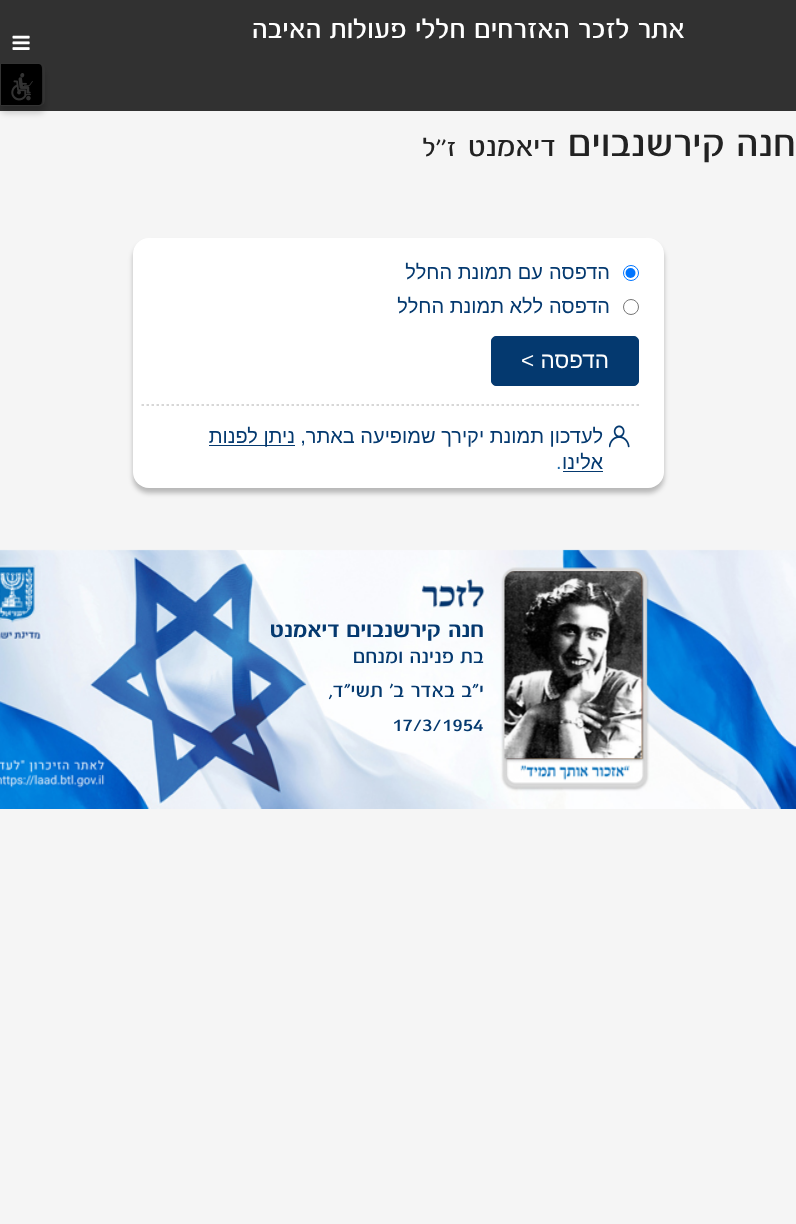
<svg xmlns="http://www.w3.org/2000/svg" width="796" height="1224">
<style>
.a{font:30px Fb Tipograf;direction:rtl;fill:#fff}
.b{font:42.5px Fb Tipograf;direction:rtl;fill:#222}
.c{font:32px Fb Tipograf;direction:rtl;fill:#222}
.d{font:28px Fb Tipograf;direction:rtl;fill:#222}
.e{font:20px Liberation Sans;direction:rtl;fill:#04396f}
.f{font:22.5px Liberation Sans;direction:rtl;fill:#fff}
.g{font:20px Liberation Sans;fill:#1f6aa9}
.h{font:bold 25px Fb Tipograf;direction:rtl;fill:#04396f}
.i{font:22.5px Fb Tipograf;direction:rtl;fill:#04396f}
.j{font:22.5px Fb Tipograf;fill:#04396f}
</style>
<rect width="100%" height="100%" fill="#f5f5f5"/>
<rect fill="#00010130" filter="blur(3px)" y="69" width="45" height="44" rx="6"/>
<path fill="#000" d="M1 64h38c2 0 3 2 3 5v31c0 3-1 5-3 5h-38z"/>
<path fill="none" stroke="#fff" d="M.5 63.5h38.5c3 0 5.5 2.5 5.5 5.5v31c0 3-2.5 5.5-5.5 5.5h-38.5z"/>
<path fill="#fff" d="M43 66h1v38H43z"/>
<image href="5.png" x="11" y="73" width="22" height="28"/>
<path fill="#000000cc" d="M0 0h796v111H0z"/>
<image href="1.png" x="12" y="35" width="18" height="15"/>
<rect fill="#00000040" filter="blur(2.5px)" x="133" y="243" width="531" height="250" rx="16"/>
<rect fill="#fff" x="133" y="238" width="531" height="250" rx="16"/>
<circle fill="none" stroke="#0075ff" cx="631" cy="273" r="7.5"/>
<circle fill="#0075ff" cx="630.5" cy="273" r="5"/>
<circle fill="none" stroke="#767676" cx="631" cy="307" r="7.5"/>
<rect fill="#04396f" stroke="#04396f" x="491.5" y="336.5" width="147" height="49" rx="4.5"/>
<path fill="none" stroke="#b0b0b0" stroke-width="1.2" stroke-dasharray="2.5 2.5" d="M639 405h-500"/>
<image href="2.png" x="609" y="425" width="21" height="23"/>
<path fill="#04396f" d="M209 445h86v1H209z"/>
<path fill="#04396f" d="M563 471h40v1H563z"/>
<image href="3.png" x="0" y="549" width="796" height="260"/>
<image href="4.png" x="504" y="571" width="139" height="189"/>
<text class="a" x="685" y="38">אתר לזכר האזרחים חללי פעולות האיבה</text>
<text class="b" x="796" y="156">חנה</text>
<text class="b" x="725" y="156">קירשנבוים</text>
<text class="c" x="556" y="156">דיאמנט</text>
<text class="d" x="456" y="156">ז''ל</text>
<text class="e" x="610" y="279">הדפסה</text>
<text class="e" x="543" y="279">עם</text>
<text class="e" x="512" y="279">תמונת החלל</text>
<text class="e" x="610" y="313">הדפסה</text>
<text class="e" x="543" y="313">ללא</text>
<text class="e" x="504" y="313">תמונת החלל</text>
<text class="f" x="609" y="368">הדפסה &gt;</text>
<text class="e" x="603" y="443">לעדכון תמונת יקירך שמופיעה באתר,</text>
<text class="e" x="295" y="443">ניתן לפנות</text>
<text class="e" x="603" y="469">אלינו</text>
<text class="g" x="556" y="469">.</text>
<text class="h" x="484" y="637">חנה</text>
<text class="h" x="441" y="637">קירשנבוים דיאמנט</text>
<text class="i" x="484" y="663">בת פנינה ומנחם</text>
<text class="i" x="484" y="697">י"ב באדר ב' תשי"ד,</text>
<text class="j" x="392" y="731">17/3/1954</text>
</svg>
